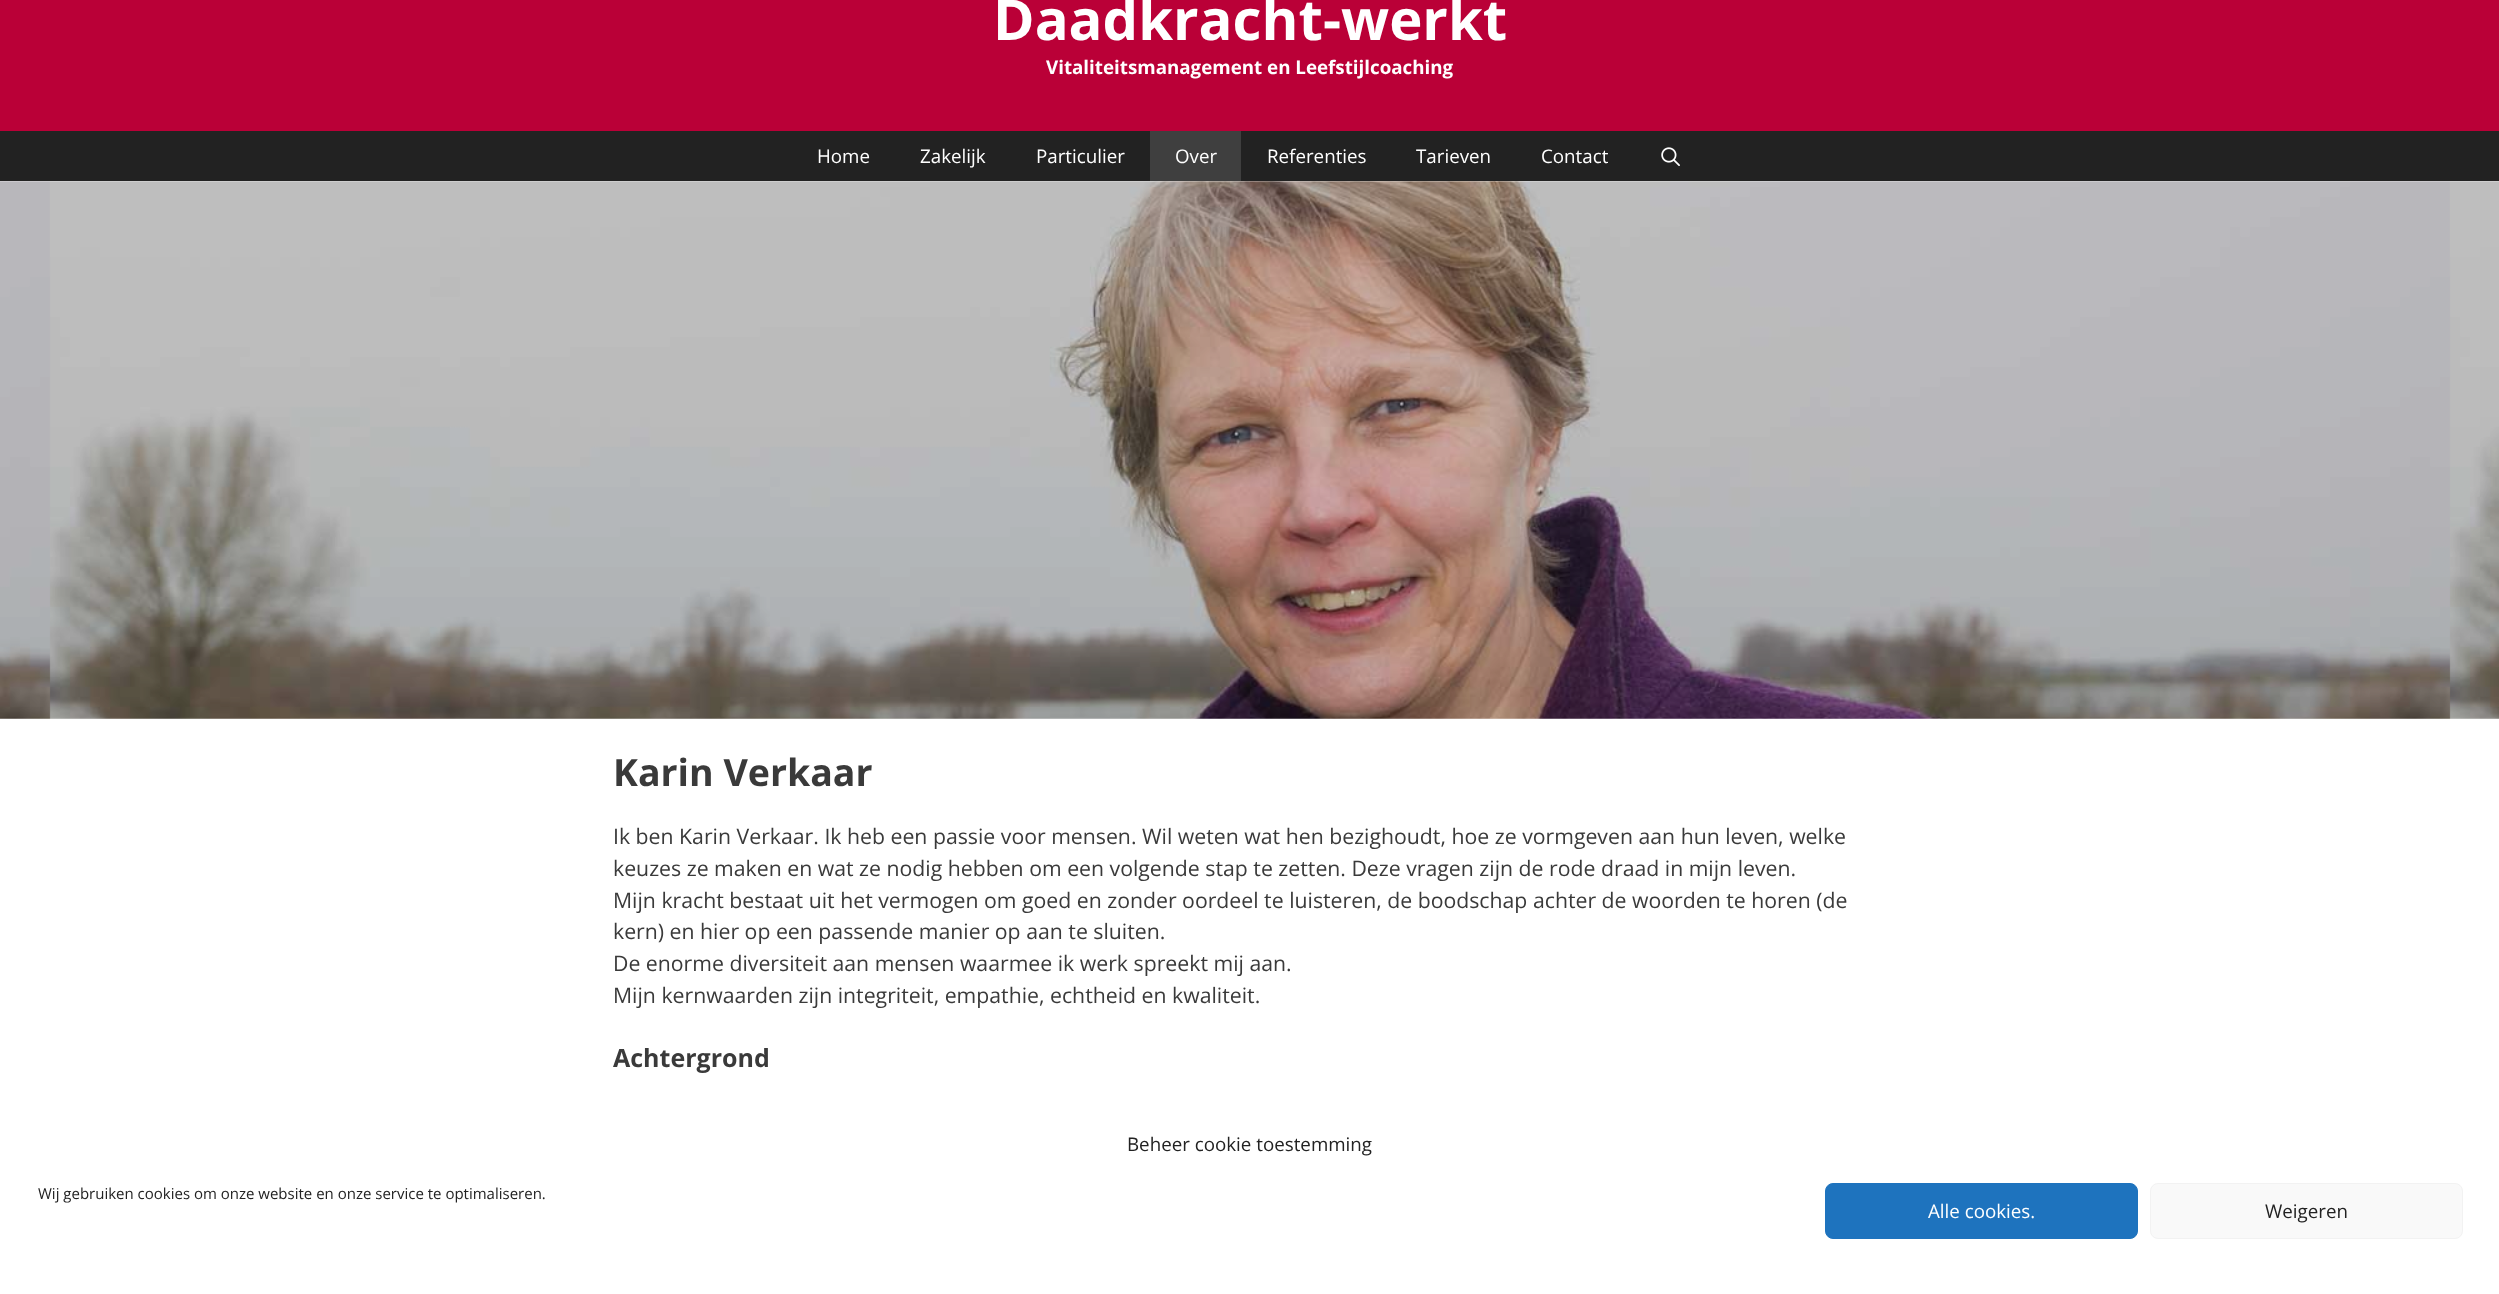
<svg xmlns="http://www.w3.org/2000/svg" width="2499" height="1294">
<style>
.a{font:bold 56.25px Open Sans;fill:#fff}
.b{font:bold 18.75px Open Sans;fill:#fff}
.c{font:18.75px Open Sans;fill:#fff}
.d{font:bold 37.5px Open Sans;fill:#3a3a3a}
.e{font:21.25px Open Sans;fill:#3a3a3a}
.f{font:bold 25px Open Sans;fill:#3a3a3a}
.g{font:18.75px Open Sans;fill:#222}
.h{font:15px Open Sans;fill:#222}
</style>
<rect width="100%" height="100%" fill="#fff"/>
<path fill="#ba0037" d="M0 0h2499v131H0z"/>
<path fill="#222" d="M0 131h2499v50H0z"/>
<path fill="#3f3f3f" d="M1150 131h91v50H1150z"/>
<image href="1.png" x="1661" y="147" width="19" height="19"/>
<image href="2.png" x="0" y="181" width="2499" height="538"/>
<rect fill="#1e73be" stroke="#1e73be" x="1825.5" y="1183.5" width="312" height="55" rx="7.5"/>
<rect fill="#f9f9f9" stroke="#f2f2f2" x="2150.5" y="1183.5" width="312" height="55" rx="7.5"/>
<text class="a" x="993" y="40">Daadkracht-werkt</text>
<text class="b" x="1046" y="74">Vitaliteitsmanagement en Leefstijlcoaching</text>
<text class="c" x="817" y="163">Home</text>
<text class="c" x="920" y="163">Zakelijk</text>
<text class="c" x="1036" y="163">Particulier</text>
<text class="c" x="1175" y="163">Over</text>
<text class="c" x="1267" y="163">Referenties</text>
<text class="c" x="1416" y="163">Tarieven</text>
<text class="c" x="1541" y="163">Contact</text>
<text class="d" x="613" y="786">Karin Verkaar</text>
<text class="e" x="613" y="844">Ik ben Karin Verkaar. Ik heb een passie voor mensen. Wil weten wat hen bezighoudt, hoe ze vormgeven aan hun leven, welke</text>
<text class="e" x="613" y="876">keuzes ze maken en wat ze nodig hebben om een volgende stap te zetten. Deze vragen zijn de rode draad in mijn leven.</text>
<text class="e" x="613" y="908">Mijn kracht bestaat uit het vermogen om goed en zonder oordeel te luisteren, de boodschap achter de woorden te horen (de</text>
<text class="e" x="613" y="939">kern) en hier op een passende manier op aan te sluiten.</text>
<text class="e" x="613" y="971">De enorme diversiteit aan mensen waarmee ik werk spreekt mij aan.</text>
<text class="e" x="613" y="1003">Mijn kernwaarden zijn integriteit, empathie, echtheid en kwaliteit.</text>
<text class="f" x="613" y="1067">Achtergrond</text>
<text class="g" x="1127" y="1151">Beheer cookie toestemming</text>
<text class="h" x="38" y="1199">Wij gebruiken cookies om onze website en onze service te optimaliseren.</text>
<text class="c" x="1928" y="1218">Alle cookies.</text>
<text class="g" x="2265" y="1218">Weigeren</text>
</svg>
